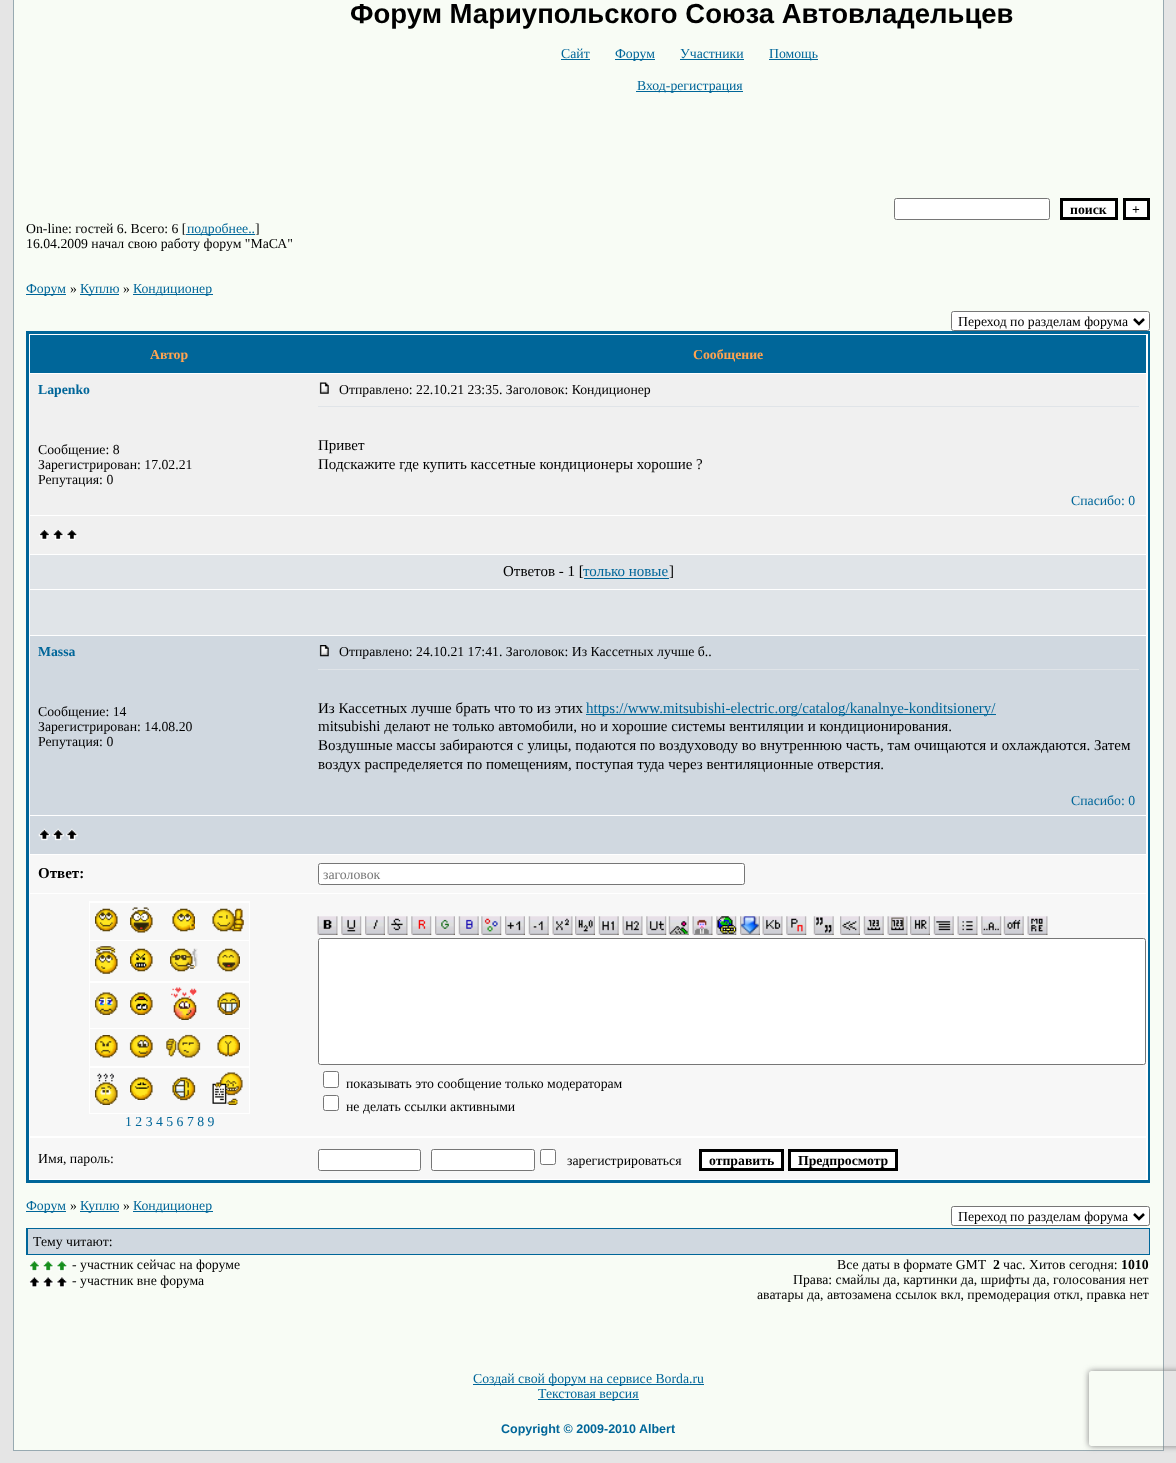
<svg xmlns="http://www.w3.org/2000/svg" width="1176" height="1463">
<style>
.a{font:bold 27.5px Liberation Sans;fill:#000}
.b{font:13.75px Liberation Serif;fill:#069}
.c{font:bold 13.75px Liberation Serif;fill:#000}
.d{font:13.75px Liberation Serif;fill:#000}
.e{font:bold 13.75px Liberation Serif;fill:#ffa450}
.f{font:bold 13.75px Liberation Serif;fill:#069}
.g{font:15px Liberation Serif;fill:#000}
.h{font:15px Liberation Serif;fill:#069}
.i{font:bold 15px Liberation Serif;fill:#000}
.j{font:13.75px Liberation Serif;fill:#757575}
.k{font:bold 12.5px Liberation Sans;fill:#069}
</style>
<defs>
<clipPath id="clip1"><path d="M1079 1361h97v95h-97zm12.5 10h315c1.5 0 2.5 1 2.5 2.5v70c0 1.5-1 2.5-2.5 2.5h-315c-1.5 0-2.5-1-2.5-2.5v-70c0-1.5 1-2.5 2.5-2.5z" clip-rule="evenodd"/></clipPath>
</defs>
<rect width="100%" height="100%" fill="#e5e5e5"/>
<path fill="#98aab1" d="M13 0h1151v1451H13z"/>
<path fill="#f8fcf5" d="M14 0h1149v1450H14z"/>
<path fill="#069" d="M561 59h29v1H561z"/>
<path fill="#069" d="M615 59h40v1H615z"/>
<path fill="#069" d="M680 59h64v1H680z"/>
<path fill="#069" d="M769 59h49v1H769z"/>
<path fill="#069" d="M636 91h107v1H636z"/>
<rect fill="#fff" stroke="#767676" x="894.5" y="198.5" width="155" height="21" rx="2"/>
<path fill="#fff" stroke="#000" stroke-width="3" d="M1061.5 199.5h55v19H1061.5z"/>
<path fill="#fff" stroke="#000" stroke-width="3" d="M1124.5 199.5h24v19H1124.5z"/>
<path fill="#069" d="M26 294h40v1H26z"/>
<path fill="#069" d="M80 294h39v1H80z"/>
<path fill="#069" d="M133 294h80v1H133z"/>
<rect fill="#fff" stroke="#767676" x="951.5" y="311.5" width="198" height="19" rx="2"/>
<path fill="none" stroke="#000" stroke-width="2.5" d="M1134 319l5 5l5-5"/>
<path fill="#069" d="M26 331h1124v852H26z"/>
<path fill="#fff" d="M29 334h1119v846H29z"/>
<path fill="#069" d="M30 335h1116v38H30z"/>
<path fill="#f0f0f0" d="M30 374h1116v141H30z"/>
<image href="1.png" x="319" y="382" width="10" height="12"/>
<path fill="#e0e4e8" d="M318 406h821v1H318z"/>
<path fill="#f0f0f0" d="M30 516h1116v38H30z"/>
<image href="2.png" x="39" y="530" width="39" height="10"/>
<path fill="#e0e4e8" d="M30 555h1116v34H30z"/>
<path fill="#069" d="M584 578h85v1H584z"/>
<path fill="#e0e4e8" d="M30 590h1116v45H30z"/>
<path fill="#d0d8e0" d="M30 636h1116v179H30z"/>
<image href="3.png" x="319" y="645" width="10" height="12"/>
<path fill="#e0e4e8" d="M318 669h821v1H318z"/>
<path fill="#069" d="M586 714h410v1H586z"/>
<path fill="#d0d8e0" d="M30 816h1116v38H30z"/>
<image href="4.png" x="38" y="828" width="40" height="13"/>
<path fill="#f7f7f7" d="M30 855h1116v38H30z"/>
<rect fill="#fff" stroke="#767676" x="318.5" y="863.5" width="426" height="21" rx="2"/>
<path fill="#f7f7f7" d="M30 894h1116v242H30z"/>
<image href="5.png" x="317" y="916" width="21" height="19"/>
<image href="6.png" x="341" y="916" width="21" height="19"/>
<image href="7.png" x="365" y="916" width="20" height="19"/>
<image href="8.png" x="387" y="916" width="21" height="19"/>
<image href="9.png" x="411" y="916" width="21" height="19"/>
<image href="10.png" x="435" y="916" width="20" height="19"/>
<image href="11.png" x="458" y="916" width="21" height="19"/>
<image href="12.png" x="481" y="916" width="21" height="19"/>
<image href="13.png" x="505" y="916" width="20" height="19"/>
<image href="14.png" x="528" y="916" width="21" height="19"/>
<image href="15.png" x="552" y="916" width="21" height="19"/>
<image href="16.png" x="575" y="916" width="20" height="19"/>
<image href="17.png" x="598" y="916" width="21" height="19"/>
<image href="18.png" x="622" y="916" width="21" height="19"/>
<image href="19.png" x="646" y="916" width="21" height="19"/>
<image href="20.png" x="668" y="916" width="21" height="19"/>
<image href="21.png" x="692" y="916" width="21" height="19"/>
<image href="22.png" x="716" y="916" width="21" height="19"/>
<image href="23.png" x="740" y="916" width="20" height="19"/>
<image href="24.png" x="762" y="916" width="21" height="19"/>
<image href="25.png" x="786" y="916" width="21" height="19"/>
<image href="26.png" x="813" y="916" width="21" height="19"/>
<image href="27.png" x="840" y="916" width="20" height="19"/>
<image href="28.png" x="863" y="916" width="21" height="19"/>
<image href="29.png" x="887" y="916" width="21" height="19"/>
<image href="30.png" x="910" y="916" width="20" height="19"/>
<image href="31.png" x="933" y="916" width="21" height="19"/>
<image href="32.png" x="957" y="916" width="21" height="19"/>
<image href="33.png" x="981" y="916" width="21" height="19"/>
<image href="34.png" x="1003" y="916" width="21" height="19"/>
<image href="35.png" x="1027" y="916" width="21" height="19"/>
<rect fill="#fff" stroke="#767676" x="318.5" y="938.5" width="827" height="126" rx="2"/>
<rect fill="#fff" stroke="#767676" x="323.5" y="1071.5" width="15" height="16" rx="2"/>
<rect fill="#fff" stroke="#767676" x="323.5" y="1095.5" width="15" height="15" rx="2"/>
<path fill="#fff" d="M89 901h161v213H89z"/>
<path fill="#f7f7f7" d="M90 903h159v37H90z"/>
<image href="36.png" x="95" y="908" width="23" height="24"/>
<image href="37.png" x="130" y="907" width="23" height="26"/>
<image href="38.png" x="172" y="908" width="23" height="24"/>
<image href="39.png" x="212" y="908" width="32" height="24"/>
<path fill="#f7f7f7" d="M90 941h159v40H90z"/>
<image href="40.png" x="95" y="946" width="23" height="28"/>
<image href="41.png" x="130" y="948" width="23" height="24"/>
<image href="42.png" x="170" y="948" width="28" height="24"/>
<image href="43.png" x="217" y="948" width="23" height="24"/>
<path fill="#f7f7f7" d="M90 983h159v45H90z"/>
<image href="44.png" x="95" y="992" width="23" height="23"/>
<image href="45.png" x="130" y="992" width="23" height="23"/>
<image href="46.png" x="171" y="987" width="26" height="33"/>
<image href="47.png" x="217" y="992" width="23" height="23"/>
<path fill="#f7f7f7" d="M90 1029h159v37H90z"/>
<image href="48.png" x="95" y="1035" width="23" height="23"/>
<image href="49.png" x="129" y="1034" width="24" height="24"/>
<image href="50.png" x="166" y="1034" width="35" height="24"/>
<image href="51.png" x="217" y="1035" width="23" height="22"/>
<path fill="#f7f7f7" d="M90 1068h159v45H90z"/>
<image href="52.png" x="95" y="1073" width="23" height="32"/>
<image href="53.png" x="130" y="1077" width="23" height="23"/>
<image href="54.png" x="172" y="1077" width="24" height="24"/>
<image href="55.png" x="212" y="1072" width="31" height="33"/>
<path fill="#f7f7f7" d="M30 1138h1116v41H30z"/>
<rect fill="#fff" stroke="#767676" x="318.5" y="1149.5" width="102" height="21" rx="2"/>
<rect fill="#fff" stroke="#767676" x="431.5" y="1149.5" width="103" height="21" rx="2"/>
<rect fill="#fff" stroke="#767676" x="540.5" y="1149.5" width="15" height="15" rx="2"/>
<path fill="#fff" stroke="#000" stroke-width="3" d="M700.5 1150.5h82v19H700.5z"/>
<path fill="#fff" stroke="#000" stroke-width="3" d="M789.5 1150.5h107v19H789.5z"/>
<path fill="#069" d="M26 1211h40v1H26z"/>
<path fill="#069" d="M80 1211h39v1H80z"/>
<path fill="#069" d="M133 1211h80v1H133z"/>
<rect fill="#fff" stroke="#767676" x="951.5" y="1206.5" width="198" height="19" rx="2"/>
<path fill="none" stroke="#000" stroke-width="2.5" d="M1134 1214l5 5l5-5"/>
<path fill="#069" d="M26 1228h1124v27H26z"/>
<path fill="#d0d8e0" d="M28 1229h1121v25H28z"/>
<image href="56.png" x="29" y="1260" width="39" height="11"/>
<image href="57.png" x="29" y="1276" width="39" height="12"/>
<path fill="#069" d="M473 1384h231v1H473z"/>
<path fill="#069" d="M538 1399h101v1H538z"/>
<g clip-path="url(#clip1)">
<rect fill="#808080" filter="blur(3px)" x="1089" y="1371" width="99" height="75" rx="2.5"/>
</g>
<text class="a" x="350" y="23">Форум Мариупольского Союза Автовладельцев</text>
<text class="b" x="561" y="58">Сайт</text>
<text class="b" x="615" y="58">Форум</text>
<text class="b" x="680" y="58">Участники</text>
<text class="b" x="769" y="58">Помощь</text>
<text class="b" x="637" y="90">Вход-регистрация</text>
<text class="c" x="1070" y="214">поиск</text>
<text class="c" x="1132" y="214">+</text>
<text class="d" x="26" y="233">On-line: гостей 6. Всего: 6 [</text>
<path fill="#069" d="M186 234h69v1H186z"/>
<text class="b" x="187" y="233">подробнее..</text>
<text class="d" x="255" y="233">]</text>
<text class="d" x="26" y="248">16.04.2009 начал свою работу форум "МаСА"</text>
<text class="b" x="26" y="293">Форум</text>
<text class="d" x="70" y="293">»</text>
<text class="b" x="80" y="293">Куплю</text>
<text class="d" x="123" y="293">»</text>
<text class="b" x="133" y="293">Кондиционер</text>
<text class="d" x="958" y="326">Переход по разделам форума</text>
<text class="e" x="150" y="359">Автор</text>
<text class="e" x="693" y="359">Сообщение</text>
<text class="f" x="38" y="394">Lapenko</text>
<text class="d" x="38" y="454">Сообщение: 8</text>
<text class="d" x="38" y="469">Зарегистрирован: 17.02.21</text>
<text class="d" x="38" y="484">Репутация: 0</text>
<text class="d" x="339" y="394">Отправлено: 22.10.21 23:35. Заголовок: Кондиционер</text>
<text class="g" x="318" y="450">Привет</text>
<text class="g" x="318" y="469">Подскажите где купить кассетные кондиционеры хорошие ?</text>
<text class="b" x="1071" y="505">Спасибо: 0</text>
<text class="g" x="503" y="576">Ответов - 1 [</text>
<text class="h" x="583" y="576">только новые</text>
<text class="g" x="669" y="576">]</text>
<text class="f" x="38" y="656">Massa</text>
<text class="d" x="38" y="716">Сообщение: 14</text>
<text class="d" x="38" y="731">Зарегистрирован: 14.08.20</text>
<text class="d" x="38" y="746">Репутация: 0</text>
<text class="d" x="339" y="656">Отправлено: 24.10.21 17:41. Заголовок: Из Кассетных лучше б..</text>
<text class="g" x="318" y="713">Из Кассетных лучше брать что то из этих</text>
<text class="h" x="586" y="713">https://www.mitsubishi-electric.org/catalog/kanalnye-konditsionery/</text>
<text class="g" x="318" y="731">mitsubishi делают не только автомобили, но и хорошие системы вентиляции и кондиционирования.</text>
<text class="g" x="318" y="750">Воздушные массы забираются с улицы, подаются по воздуховоду во внутреннюю часть, там очищаются и охлаждаются. Затем</text>
<text class="g" x="318" y="769">воздух распределяется по помещениям, поступая туда через вентиляционные отверстия.</text>
<text class="b" x="1071" y="805">Спасибо: 0</text>
<text class="i" x="38" y="878">Ответ:</text>
<text class="j" x="323" y="879">заголовок</text>
<text class="d" x="346" y="1088">показывать это сообщение только модераторам</text>
<text class="d" x="346" y="1111">не делать ссылки активными</text>
<text class="b" x="125" y="1126">1 2 3 4 5 6 7 8 9</text>
<text class="d" x="38" y="1163">Имя, пароль:</text>
<text class="d" x="567" y="1165">зарегистрироваться</text>
<text class="c" x="709" y="1165">отправить</text>
<text class="c" x="798" y="1165">Предпросмотр</text>
<text class="b" x="26" y="1210">Форум</text>
<text class="d" x="70" y="1210">»</text>
<text class="b" x="80" y="1210">Куплю</text>
<text class="d" x="123" y="1210">»</text>
<text class="b" x="133" y="1210">Кондиционер</text>
<text class="d" x="958" y="1221">Переход по разделам форума</text>
<text class="d" x="33" y="1246">Тему читают:</text>
<text class="d" x="72" y="1269">- участник сейчас на форуме</text>
<text class="d" x="72" y="1285">- участник вне форума</text>
<text class="d" x="837" y="1269">Все даты в формате GMT</text>
<text class="c" x="993" y="1269">2</text>
<text class="d" x="1003" y="1269">час. Хитов сегодня:</text>
<text class="c" x="1121" y="1269">1010</text>
<text class="d" x="793" y="1284">Права: смайлы да, картинки да, шрифты да, голосования нет</text>
<text class="d" x="757" y="1299">аватары да, автозамена ссылок вкл, премодерация откл, правка нет</text>
<text class="b" x="473" y="1383">Создай свой форум на сервисе Borda.ru</text>
<text class="b" x="538" y="1398">Текстовая версия</text>
<text class="k" x="501" y="1433">Copyright © 2009-2010 Albert</text>
</svg>
